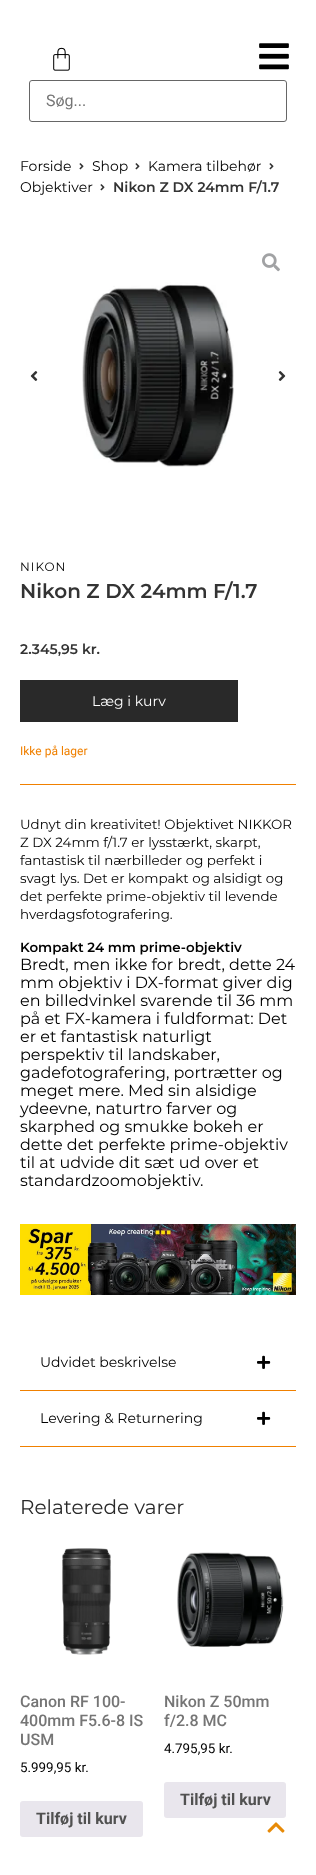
<svg xmlns="http://www.w3.org/2000/svg" width="316" height="1875">
<style>
.a{font:16px Roboto;fill:#757575}
.b{font:14px Montserrat;fill:#000}
.c{font:600 14px Montserrat;fill:#333}
.d{font:12px Montserrat;letter-spacing:1px;fill:#000}
.e{font:600 20px Montserrat;fill:#333}
.f{font:14px Montserrat;fill:#fff}
.g{font:12px Roboto;fill:#f08000}
.h{font:13.4px Montserrat;fill:#000}
.i{font:600 13.4px Montserrat;fill:#000}
.j{font:16px Montserrat;fill:#000}
.k{font:20px Montserrat;fill:#292929}
.l{font:500 16px Roboto;fill:#757575}
.m{font:13.4px Roboto;fill:#000}
.n{font:bold 16px Roboto;fill:#515151}
</style>
<rect width="100%" height="100%" fill="#fff"/>
<image href="1.png" x="53" y="47" width="17" height="24"/>
<image href="2.png" x="259" y="43" width="30" height="27"/>
<rect fill="none" stroke="#666" x="29.5" y="80.5" width="257" height="41" rx="2.5"/>
<image href="3.png" x="267" y="1822" width="18" height="11"/>
<image href="4.png" x="79" y="163" width="5" height="7"/>
<image href="4.png" x="135" y="163" width="5" height="7"/>
<image href="4.png" x="269" y="163" width="5" height="7"/>
<image href="4.png" x="100" y="184" width="5" height="7"/>
<image href="5.png" x="20" y="238" width="276" height="276"/>
<image href="6.png" x="262" y="253" width="18" height="19"/>
<image href="7.png" x="30" y="371" width="8" height="10"/>
<image href="8.png" x="278" y="371" width="8" height="10"/>
<path fill="#292929" d="M20 680h218v42H20z"/>
<path fill="#f08000" d="M20 784h276v1H20z"/>
<image href="9.png" x="20" y="1224" width="276" height="71"/>
<path fill="#f08000" d="M20 1390h276v1H20z"/>
<image href="10.png" x="257" y="1355" width="14" height="14"/>
<path fill="#f08000" d="M20 1446h276v1H20z"/>
<image href="10.png" x="257" y="1411" width="14" height="14"/>
<image href="11.png" x="62" y="1548" width="49" height="107"/>
<rect fill="#e9e6ed" x="20" y="1801" width="123" height="36" rx="3"/>
<image href="12.png" x="177" y="1552" width="107" height="95"/>
<rect fill="#e9e6ed" x="164" y="1782" width="122" height="36" rx="3"/>
<text class="a" x="46" y="106">Søg...</text>
<text class="b" x="20" y="171">Forside</text>
<text class="b" x="92" y="171">Shop</text>
<text class="b" x="148" y="171">Kamera tilbehør</text>
<text class="b" x="20" y="192">Objektiver</text>
<text class="c" x="113" y="192">Nikon Z DX 24mm F/1.7</text>
<text class="d" x="20" y="571">NIKON</text>
<text class="e" x="20" y="598">Nikon Z DX 24mm F/1.7</text>
<text class="c" x="20" y="654">2.345,95 kr.</text>
<text class="f" x="92" y="706">Læg i kurv</text>
<text class="g" x="20" y="755">Ikke på lager</text>
<text class="h" x="20" y="829">Udnyt din kreativitet! Objektivet NIKKOR</text>
<text class="h" x="20" y="847">Z DX 24mm f/1.7 er lysstærkt, skarpt,</text>
<text class="h" x="20" y="865">fantastisk til nærbilleder og perfekt i</text>
<text class="h" x="20" y="883">svagt lys. Det er kompakt og alsidigt og</text>
<text class="h" x="20" y="901">det perfekte prime-objektiv til levende</text>
<text class="h" x="20" y="919">hverdagsfotografering.</text>
<text class="i" x="20" y="952">Kompakt 24 mm prime-objektiv</text>
<text class="j" x="20" y="970">Bredt, men ikke for bredt, dette 24</text>
<text class="j" x="20" y="988">mm objektiv i DX-format giver dig</text>
<text class="j" x="20" y="1006">en billedvinkel svarende til 36 mm</text>
<text class="j" x="20" y="1024">på et FX-kamera i fuldformat: Det</text>
<text class="j" x="20" y="1042">er et fantastisk naturligt</text>
<text class="j" x="20" y="1060">perspektiv til landskaber,</text>
<text class="j" x="20" y="1078">gadefotografering, portrætter og</text>
<text class="j" x="20" y="1096">meget mere. Med sin alsidige</text>
<text class="j" x="20" y="1114">ydeevne, naturtro farver og</text>
<text class="j" x="20" y="1132">skarphed og smukke bokeh er</text>
<text class="j" x="20" y="1150">dette det perfekte prime-objektiv</text>
<text class="j" x="20" y="1168">til at udvide dit sæt ud over et</text>
<text class="j" x="20" y="1186">standardzoomobjektiv.</text>
<text class="b" x="40" y="1367">Udvidet beskrivelse</text>
<text class="b" x="40" y="1423">Levering &amp; Returnering</text>
<text class="k" x="20" y="1514">Relaterede varer</text>
<text class="l" x="20" y="1707">Canon RF 100-</text>
<text class="l" x="20" y="1726">400mm F5.6-8 IS</text>
<text class="l" x="20" y="1745">USM</text>
<text class="m" x="20" y="1772">5.999,95 kr.</text>
<text class="n" x="36" y="1824">Tilføj til kurv</text>
<text class="l" x="164" y="1707">Nikon Z 50mm</text>
<text class="l" x="164" y="1726">f/2.8 MC</text>
<text class="m" x="164" y="1753">4.795,95 kr.</text>
<text class="n" x="180" y="1805">Tilføj til kurv</text>
</svg>
